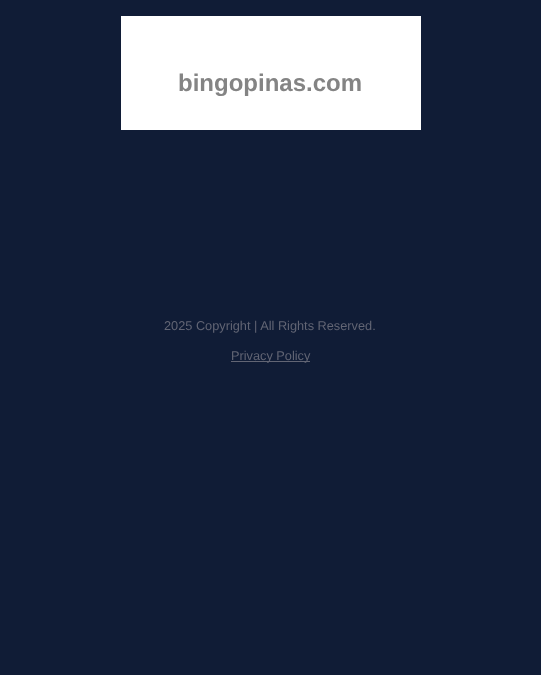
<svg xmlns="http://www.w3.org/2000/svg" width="541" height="675">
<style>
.a{font:bold 24px Liberation Sans;fill:#848484}
.b{font:12.75px Liberation Sans;fill:#626574}
</style>
<rect width="100%" height="100%" fill="#101c36"/>
<path fill="#fff" d="M121 16h300v114H121z"/>
<path fill="#626574" d="M231 361h79v1H231z"/>
<text class="a" x="178" y="91">bingopinas.com</text>
<text class="b" x="164" y="330">2025 Copyright | All Rights Reserved.</text>
<text class="b" x="231" y="360">Privacy Policy</text>
</svg>
